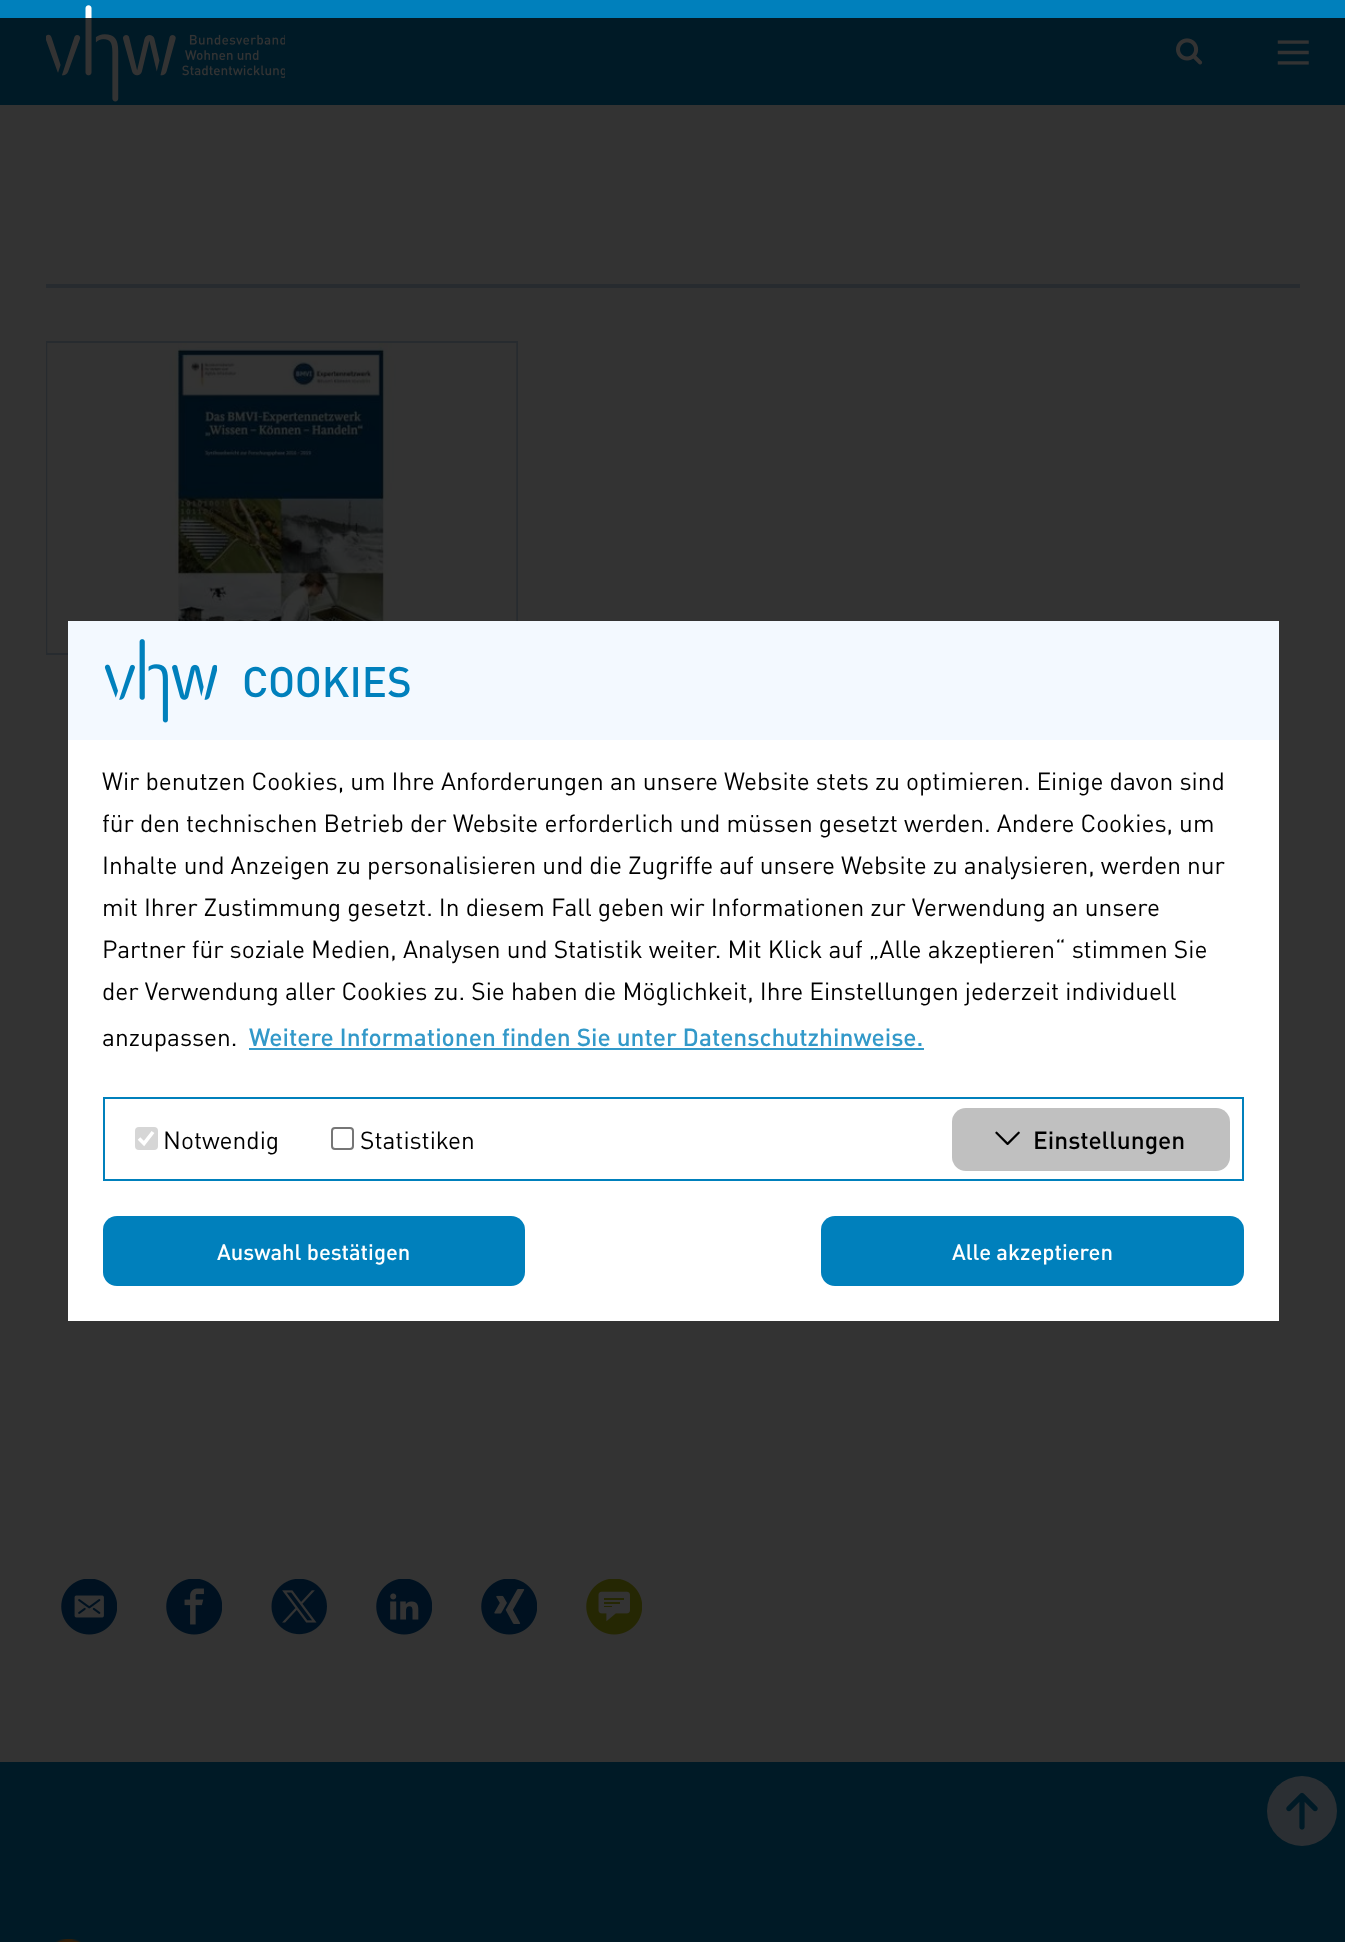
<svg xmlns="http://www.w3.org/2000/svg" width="1345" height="1942">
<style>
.a{font:500 42px DIN;fill:#0080bc}
.b{font:24.5px DIN;fill:#000}
.c{font:500 24.5px DIN;fill:#3399c9}
.d{font:24.5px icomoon;fill:#000}
.e{font:500 24.5px DIN;fill:#000}
.f{font:500 22px DIN;fill:#fff}
</style>
<rect width="100%" height="100%" fill="#fff"/>
<path fill="#0080bc" d="M0 0h1345v105H0z"/>
<image href="1.png" x="46" y="5" width="239" height="97"/>
<image href="2.png" x="1176" y="38" width="27" height="27"/>
<image href="3.png" x="1277" y="40" width="32" height="25"/>
<path fill="#c1d7e9" d="M46 284h1254v4H46z"/>
<path fill="none" stroke="#c1d7e9" stroke-width="2" d="M47 342h470v312H47z"/>
<image href="4.png" x="47" y="343" width="470" height="310"/>
<image href="5.png" x="61" y="1579" width="56" height="56"/>
<image href="6.png" x="166" y="1579" width="56" height="56"/>
<image href="7.png" x="271" y="1579" width="56" height="56"/>
<image href="8.png" x="376" y="1579" width="56" height="56"/>
<image href="9.png" x="481" y="1579" width="56" height="56"/>
<image href="10.png" x="586" y="1579" width="56" height="56"/>
<path fill="#0080bc" d="M0 1762h1345v180H0z"/>
<image href="12.png" x="55" y="1939" width="26" height="3"/>
<circle fill="#d7ecfe" cx="1302" cy="1811" r="35"/>
<image href="13.png" x="1286" y="1792" width="32" height="38"/>
<path fill="#000000cc" d="M0 18h1345v1924H0z"/>
<path fill="#fff" d="M68 740h1211v581H68z"/>
<path fill="#f3f9ff" d="M68 621h1211v119H68z"/>
<image href="11.png" x="104" y="639" width="113" height="84"/>
<path fill="#3399c9" d="M249 1048h675v2H249z"/>
<path fill="none" stroke="#0080bc" stroke-width="2" d="M104 1098h1139v82H104z"/>
<rect fill="#d6d6d6" x="135" y="1127" width="23" height="23" rx="4"/>
<path fill="none" stroke="#fff" stroke-width="3.6" d="M139 1138.5l5 5l9-11.5"/>
<rect fill="none" stroke="#767676" stroke-width="2" x="332" y="1128" width="21" height="21" rx="3"/>
<rect fill="#c0c0c0" x="952" y="1108" width="278" height="63" rx="14"/>
<rect fill="#0080bc" x="103" y="1216" width="422" height="70" rx="14"/>
<rect fill="#0080bc" x="821" y="1216" width="423" height="70" rx="14"/>
<text class="a" x="242" y="697">COOKIES</text>
<text class="b" x="102" y="790">Wir benutzen Cookies, um Ihre Anforderungen an unsere Website stets zu optimieren. Einige davon sind</text>
<text class="b" x="102" y="832">für den technischen Betrieb der Website erforderlich und müssen gesetzt werden. Andere Cookies, um</text>
<text class="b" x="102" y="874">Inhalte und Anzeigen zu personalisieren und die Zugriffe auf unsere Website zu analysieren, werden nur</text>
<text class="b" x="102" y="916">mit Ihrer Zustimmung gesetzt. In diesem Fall geben wir Informationen zur Verwendung an unsere</text>
<text class="b" x="102" y="958">Partner für soziale Medien, Analysen und Statistik weiter. Mit Klick auf „Alle akzeptieren“ stimmen Sie</text>
<text class="b" x="102" y="1000">der Verwendung aller Cookies zu. Sie haben die Möglichkeit, Ihre Einstellungen jederzeit individuell</text>
<text class="b" x="102" y="1046">anzupassen.</text>
<text class="c" x="249" y="1046">Weitere Informationen finden Sie unter Datenschutzhinweise.</text>
<text class="b" x="163" y="1149">Notwendig</text>
<text class="b" x="360" y="1149">Statistiken</text>
<text class="d" x="995" y="1149">=</text>
<text class="e" x="1033" y="1149">Einstellungen</text>
<text class="f" x="217" y="1260">Auswahl bestätigen</text>
<text class="f" x="952" y="1260">Alle akzeptieren</text>
</svg>
